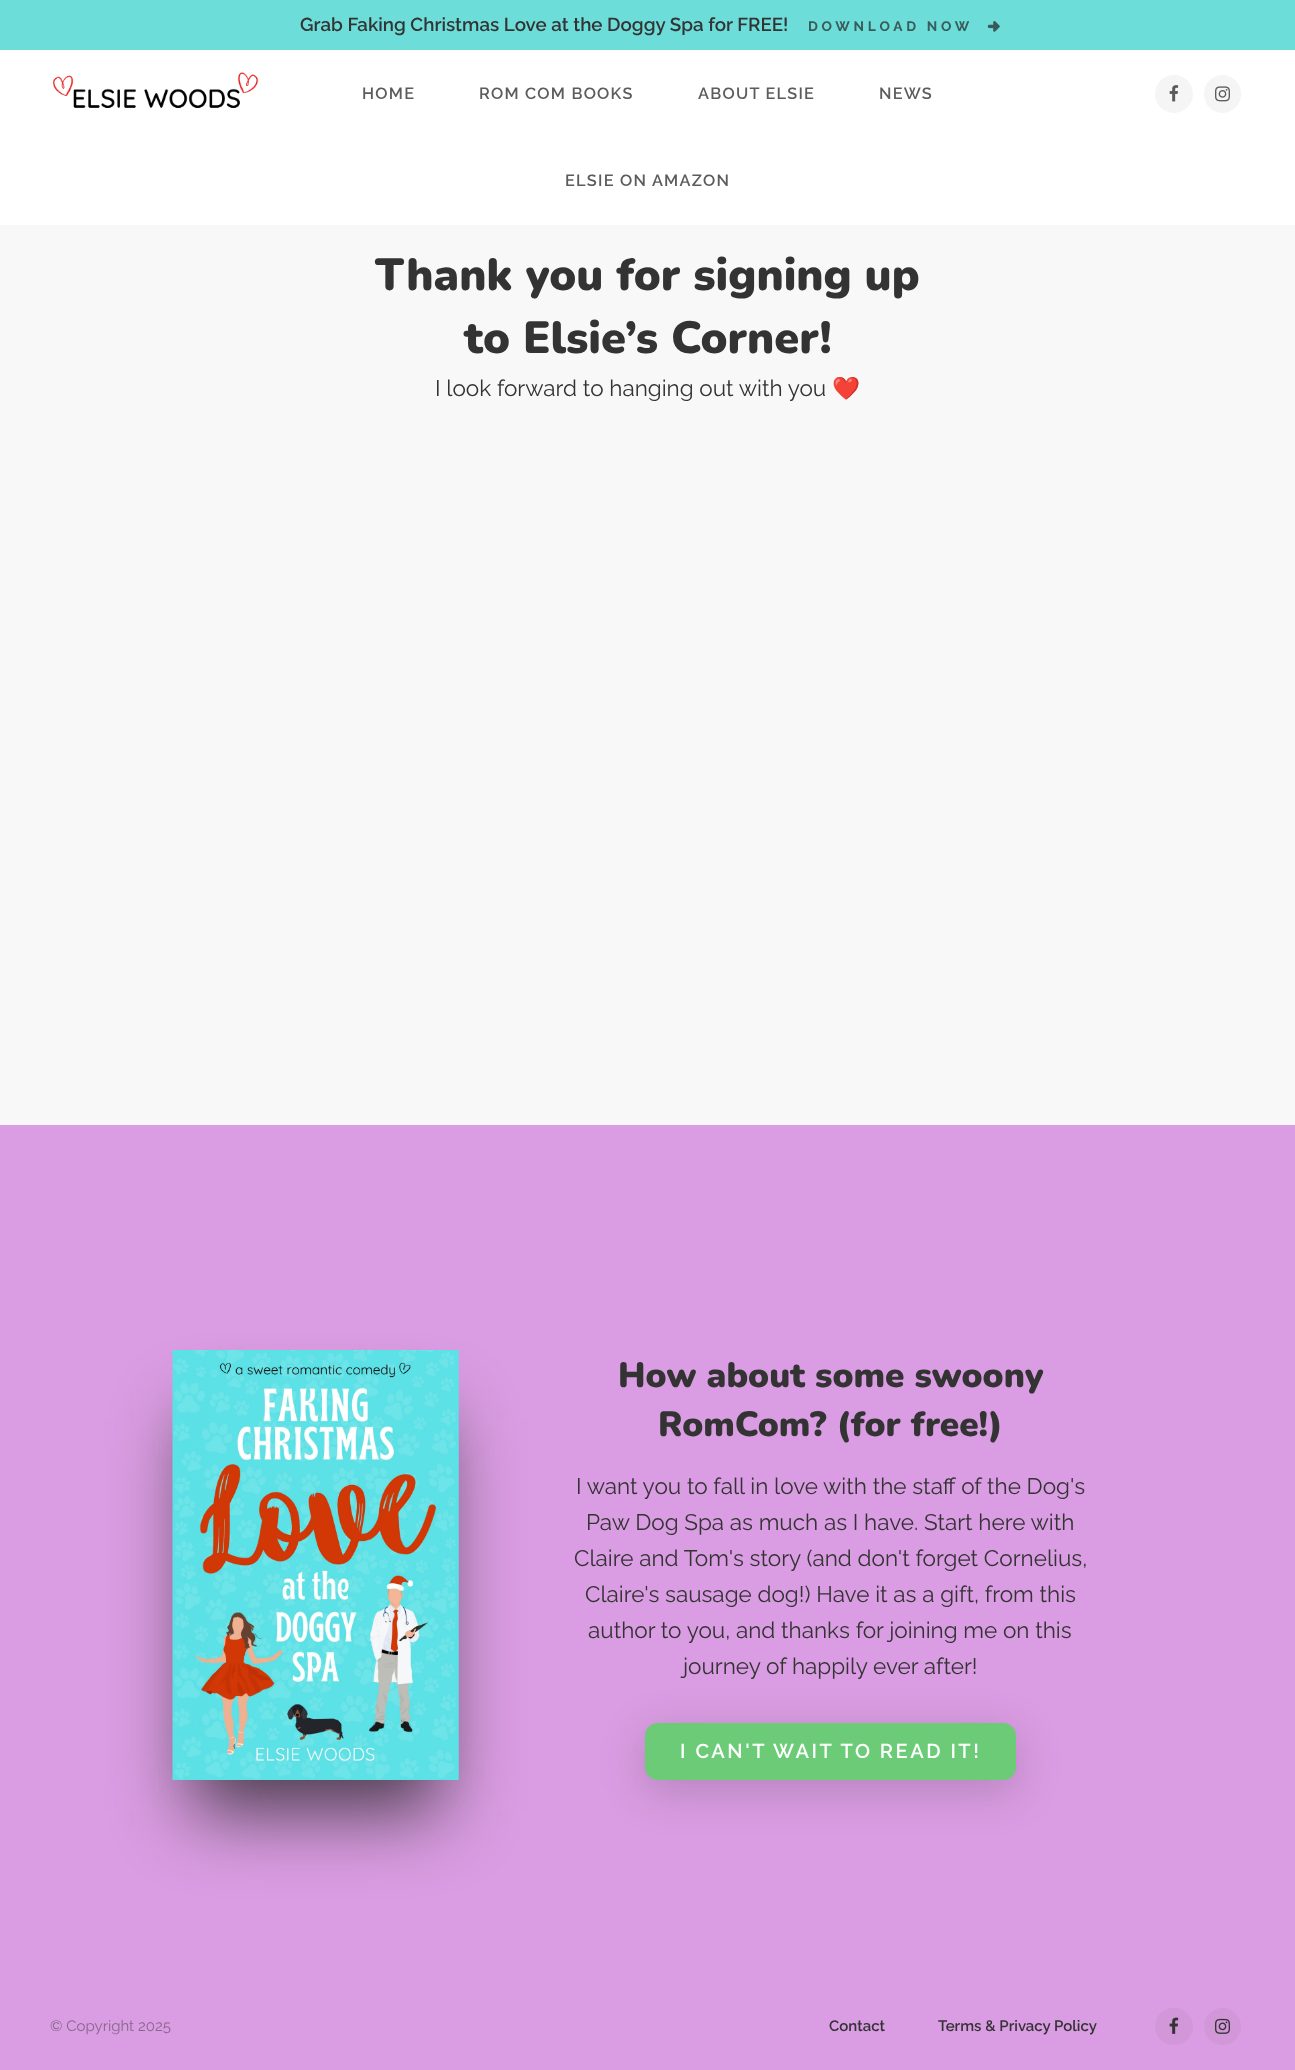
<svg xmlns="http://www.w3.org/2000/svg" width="1295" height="2070">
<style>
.a{font:600 18.75px Raleway;fill:#333}
.b{font:bold 13.75px Raleway;letter-spacing:3.75px;fill:#395b59}
.c{font:600 16.25px Raleway;letter-spacing:1.25px;fill:#5c5c5c}
.d{font:900 45px Nunito;fill:#333}
.e{font:22.5px Raleway;fill:#333}
.f{font:22.5px Noto Color Emoji;fill:#333}
.g{font:900 35px Nunito;fill:#333}
.h{font:600 20px Raleway;letter-spacing:2.5px;fill:#fff}
.i{font:15px Raleway;fill:#87688b}
.j{font:600 15px Raleway;fill:#333}
</style>
<rect width="100%" height="100%" fill="#f8f8f8"/>
<path fill="#33333333" filter="blur(0.5px)" d="M0 0h1295v225H0z"/>
<path fill="#fff" d="M0 50h1295v175H0z"/>
<path fill="#6cddd8" d="M0 0h1295v50H0z"/>
<image href="1.png" x="987" y="21" width="13" height="11"/>
<image href="2.png" x="53" y="72" width="206" height="36"/>
<circle fill="#f5f5f5" cx="1174" cy="94" r="19"/>
<image href="3.png" x="1169" y="85" width="10" height="17"/>
<rect fill="#f5f5f5" x="1204" y="75" width="37" height="38" rx="18.5"/>
<image href="4.png" x="1215" y="86" width="15" height="16"/>
<path fill="#da9ce2" d="M0 1125h1295v945H0z"/>
<path fill="#232323cc" filter="blur(37.5px)" d="M191 1419h249v392H191z"/>
<image href="5.png" x="172" y="1350" width="287" height="430"/>
<rect fill="#23232333" filter="blur(22px)" x="645" y="1734" width="371" height="57" rx="13"/>
<rect fill="#6bcb77" x="645" y="1723" width="371" height="57" rx="13"/>
<rect fill="#d297d9" x="1155" y="2008" width="38" height="37" rx="18.5"/>
<image href="6.png" x="1169" y="2017" width="10" height="17"/>
<circle fill="#d297d9" cx="1222.5" cy="2026.5" r="18.5"/>
<image href="7.png" x="1215" y="2018" width="15" height="16"/>
<text class="a" x="300" y="31">Grab Faking Christmas Love at the Doggy Spa for FREE!</text>
<text class="b" x="808" y="31">DOWNLOAD NOW</text>
<text class="c" x="362" y="99">HOME</text>
<text class="c" x="479" y="99">ROM COM BOOKS</text>
<text class="c" x="698" y="99">ABOUT ELSIE</text>
<text class="c" x="879" y="99">NEWS</text>
<text class="c" x="565" y="186">ELSIE ON AMAZON</text>
<text class="d" x="375" y="290">Thank you for signing up</text>
<text class="d" x="464" y="353">to Elsie’s Corner!</text>
<text class="e" x="435" y="396">I look forward to hanging out with you</text>
<text class="f" x="832" y="396">❤️</text>
<text class="g" x="618" y="1387">How about some swoony</text>
<text class="g" x="658" y="1436">RomCom? (for free!)</text>
<text class="e" x="576" y="1494">I want you to fall in love with the staff of the Dog's</text>
<text class="e" x="586" y="1530">Paw Dog Spa as much as I have. Start here with</text>
<text class="e" x="574" y="1566">Claire and Tom's story (and don't forget Cornelius,</text>
<text class="e" x="585" y="1602">Claire's sausage dog!) Have it as a gift, from this</text>
<text class="e" x="588" y="1638">author to you, and thanks for joining me on this</text>
<text class="e" x="683" y="1674">journey of happily ever after!</text>
<text class="h" x="680" y="1758">I CAN'T WAIT TO READ IT!</text>
<text class="i" x="50" y="2031">© Copyright 2025</text>
<text class="j" x="829" y="2031">Contact</text>
<text class="j" x="938" y="2031">Terms &amp; Privacy Policy</text>
</svg>
